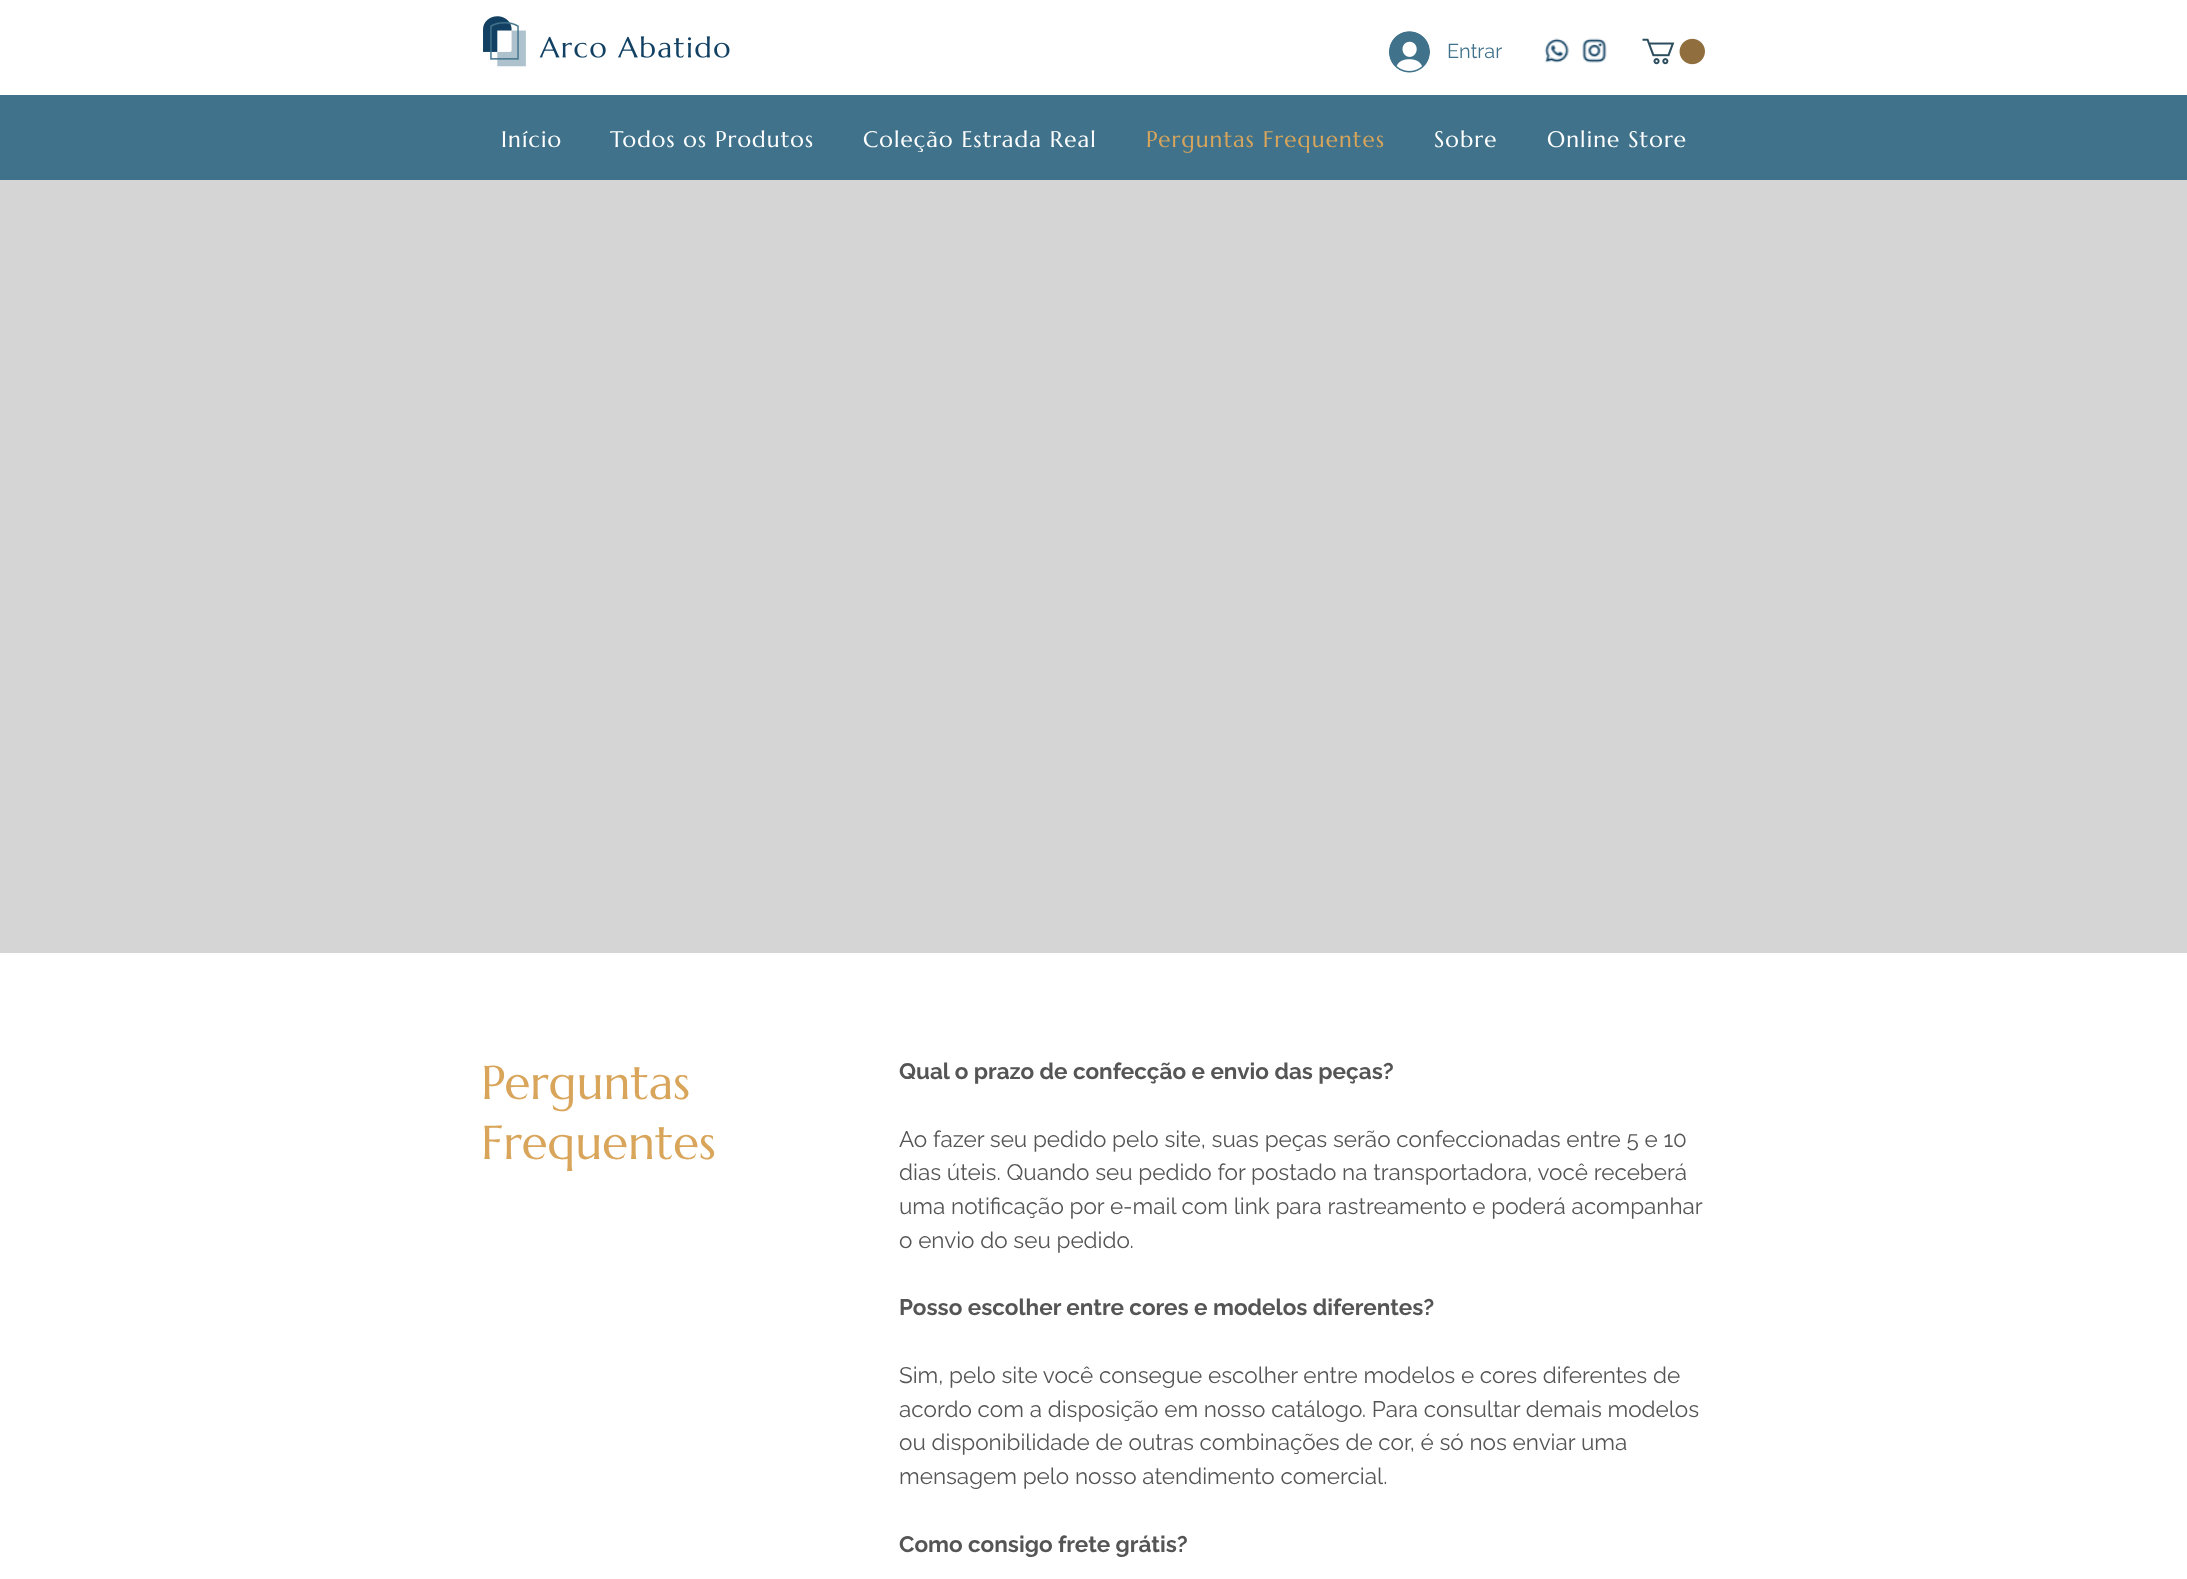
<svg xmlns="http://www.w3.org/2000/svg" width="2187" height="1579">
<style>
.a{font:20px Raleway;fill:#40738b}
.b{font:22.5px 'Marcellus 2';letter-spacing:1.1px;fill:#fff}
.c{font:22.5px 'Marcellus 2';letter-spacing:1.1px;fill:#d8a55b}
.d{font:47.5px Marcellus;fill:#d8a55b}
.e{font:bold 22.5px Raleway;fill:#555}
.f{font:22.5px Raleway;fill:#555}
</style>
<rect width="100%" height="100%" fill="#fff"/>
<image href="1.png" x="483" y="16" width="247" height="51"/>
<image href="2.png" x="1389" y="31" width="41" height="42"/>
<image href="3.png" x="1544" y="38" width="26" height="25"/>
<image href="4.png" x="1582" y="38" width="25" height="25"/>
<image href="5.png" x="1642" y="38" width="63" height="27"/>
<path fill="#40738b" d="M0 95h2187v85H0z"/>
<path fill="#d5d5d5" d="M0 180h2187v773H0z"/>
<text class="a" x="1447" y="58">Entrar</text>
<text class="b" x="501" y="147">Início</text>
<text class="b" x="610" y="147">Todos os Produtos</text>
<text class="b" x="863" y="147">Coleção Estrada Real</text>
<text class="c" x="1146" y="147">Perguntas Frequentes</text>
<text class="b" x="1434" y="147">Sobre</text>
<text class="b" x="1547" y="147">Online Store</text>
<text class="d" x="481" y="1099">Perguntas</text>
<text class="d" x="481" y="1159">Frequentes</text>
<text class="e" x="899" y="1079">Qual o prazo de confecção e envio das peças?</text>
<text class="f" x="899" y="1147">Ao fazer seu pedido pelo site, suas peças serão confeccionadas entre 5 e 10</text>
<text class="f" x="899" y="1180">dias úteis. Quando seu pedido for postado na transportadora, você receberá</text>
<text class="f" x="899" y="1214">uma notificação por e-mail com link para rastreamento e poderá acompanhar</text>
<text class="f" x="899" y="1248">o envio do seu pedido.</text>
<text class="e" x="899" y="1315">Posso escolher entre cores e modelos diferentes?</text>
<text class="f" x="899" y="1383">Sim, pelo site você consegue escolher entre modelos e cores diferentes de</text>
<text class="f" x="899" y="1417">acordo com a disposição em nosso catálogo. Para consultar demais modelos</text>
<text class="f" x="899" y="1450">ou disponibilidade de outras combinações de cor, é só nos enviar uma</text>
<text class="f" x="899" y="1484">mensagem pelo nosso atendimento comercial.</text>
<text class="e" x="899" y="1552">Como consigo frete grátis?</text>
</svg>
